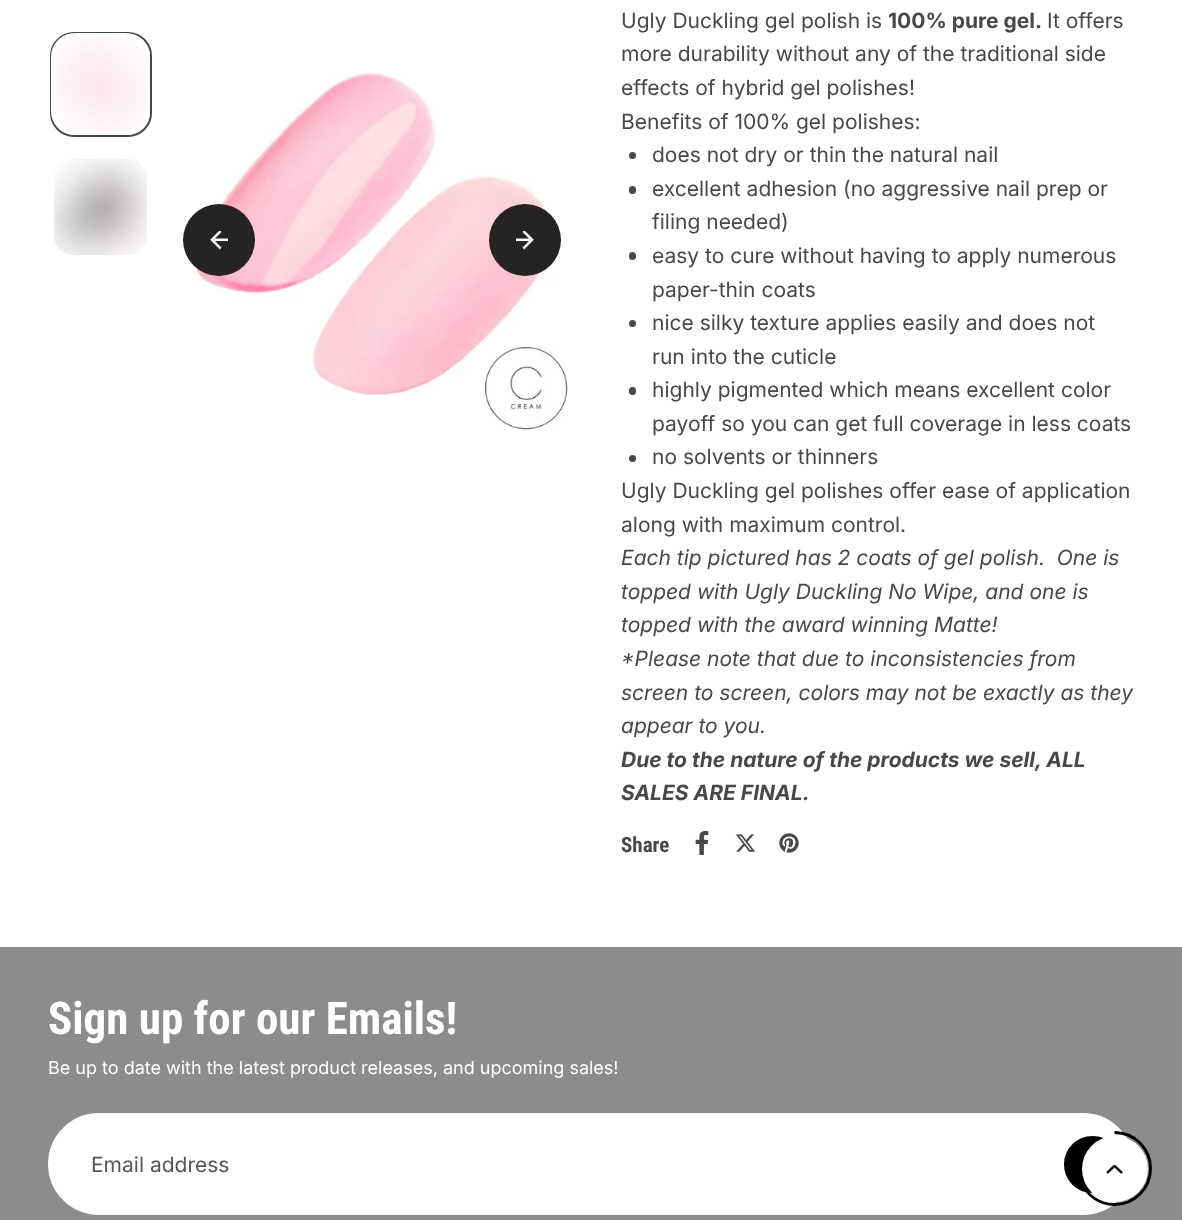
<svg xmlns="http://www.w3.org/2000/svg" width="1182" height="1220">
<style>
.a{font:21px Inter;fill:#484848}
.b{font:bold 21px Inter;fill:#484848}
.c{font:italic 21px Inter;fill:#484848}
.d{font:italic bold 21px Inter;fill:#484848}
.e{font:bold 21px Roboto Condensed;fill:#484848}
.f{font:bold 45px Roboto Condensed;fill:#fff}
.g{font:18px Inter;fill:#fff}
.h{font:21px Inter;fill:#565656}
</style>
<rect width="100%" height="100%" fill="#fff"/>
<rect fill="none" stroke="#484848" stroke-width="2" x="51" y="33" width="100" height="103" rx="23"/>
<rect fill="#fff" stroke="#fff" stroke-width="5" x="53.5" y="35.5" width="94" height="97" rx="21.5"/>
<image href="1.png" x="55" y="37" width="91" height="94"/>
<image href="2.png" x="54" y="159" width="93" height="96"/>
<image href="3.png" x="195" y="72" width="373" height="358"/>
<circle fill="#252324" cx="219" cy="240" r="36"/>
<image href="4.png" x="210" y="231" width="18" height="19"/>
<circle fill="#252324" cx="525" cy="240" r="36"/>
<image href="5.png" x="516" y="231" width="18" height="19"/>
<circle fill="#484848" cx="632.5" cy="155.5" r="3.5"/>
<rect fill="#484848" x="629" y="186" width="7" height="8" rx="3.5"/>
<rect fill="#484848" x="629" y="252" width="7" height="8" rx="3.5"/>
<circle fill="#484848" cx="632.5" cy="323.5" r="3.5"/>
<rect fill="#484848" x="629" y="387" width="7" height="8" rx="3.5"/>
<circle fill="#484848" cx="632.5" cy="458.5" r="3.5"/>
<image href="6.png" x="695" y="831" width="14" height="24"/>
<image href="7.png" x="735" y="834" width="21" height="18"/>
<image href="8.png" x="779" y="833" width="20" height="20"/>
<path fill="#8c8c8c" d="M0 947h1182v273H0z"/>
<rect fill="#fff" stroke="#fff" stroke-width="2" x="49" y="1114" width="1084" height="100" rx="50"/>
<circle fill="#000" stroke="#000" stroke-width="2" cx="1092.5" cy="1164.5" r="27.5"/>
<path fill="none" stroke="#000" stroke-width="2.9" d="M1114.5 1132.5c20 0 36 16 36 36c0 20-16 36-36 36c-15 0-27.5-9-33-22"/>
<circle fill="#fff" cx="1115" cy="1169" r="33"/>
<image href="9.png" x="1106" y="1165" width="17" height="9"/>
<text class="a" x="621" y="28">Ugly Duckling gel polish is</text>
<text class="b" x="888" y="28">100% pure gel.</text>
<text class="a" x="1047" y="28">It offers</text>
<text class="a" x="621" y="61">more durability without any of the traditional side</text>
<text class="a" x="621" y="95">effects of hybrid gel polishes!</text>
<text class="a" x="621" y="129">Benefits of 100% gel polishes:</text>
<text class="a" x="652" y="162">does not dry or thin the natural nail</text>
<text class="a" x="652" y="196">excellent adhesion (no aggressive nail prep or</text>
<text class="a" x="652" y="229">filing needed)</text>
<text class="a" x="652" y="263">easy to cure without having to apply numerous</text>
<text class="a" x="652" y="297">paper-thin coats</text>
<text class="a" x="652" y="330">nice silky texture applies easily and does not</text>
<text class="a" x="652" y="364">run into the cuticle</text>
<text class="a" x="652" y="397">highly pigmented which means excellent color</text>
<text class="a" x="652" y="431">payoff so you can get full coverage in less coats</text>
<text class="a" x="652" y="464">no solvents or thinners</text>
<text class="a" x="621" y="498">Ugly Duckling gel polishes offer ease of application</text>
<text class="a" x="621" y="532">along with maximum control.</text>
<text class="c" xml:space="preserve" x="621" y="565">Each tip pictured has 2 coats of gel polish.  One is</text>
<text class="c" x="621" y="599">topped with Ugly Duckling No Wipe, and one is</text>
<text class="c" x="621" y="632">topped with the award winning Matte!</text>
<text class="c" x="621" y="666">*Please note that due to inconsistencies from</text>
<text class="c" x="621" y="700">screen to screen, colors may not be exactly as they</text>
<text class="c" x="621" y="733">appear to you.</text>
<text class="d" x="621" y="767">Due to the nature of the products we sell, ALL</text>
<text class="d" x="621" y="800">SALES ARE FINAL.</text>
<text class="e" x="621" y="852">Share</text>
<text class="f" x="48" y="1034">Sign up for our Emails!</text>
<text class="g" x="48" y="1074">Be up to date with the latest product releases, and upcoming sales!</text>
<text class="h" x="91" y="1172">Email address</text>
</svg>
